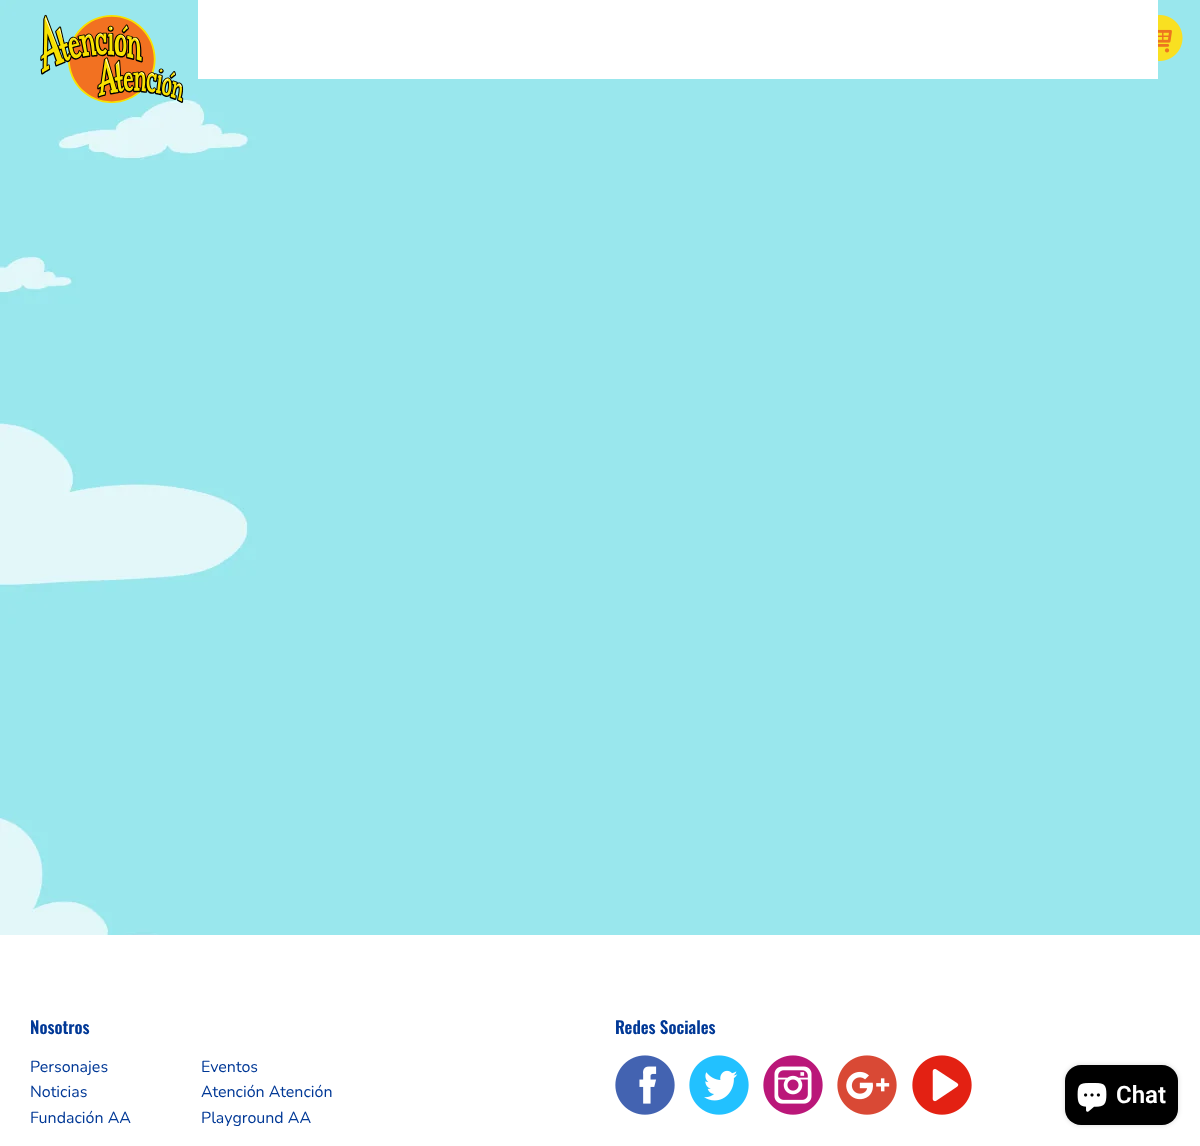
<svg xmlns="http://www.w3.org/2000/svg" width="1200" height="1146">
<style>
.a{font:600 17px Oswald;fill:#003896}
.b{font:16px Nunito;fill:#003896}
.c{font:600 24px Roboto;fill:#fff}
</style>
<rect width="100%" height="100%" fill="#fff"/>
<image href="1.png" x="0" y="0" width="1200" height="935"/>
<image href="2.png" x="40" y="14" width="144" height="90"/>
<image href="3.png" x="1158" y="15" width="25" height="46"/>
<path fill="#fff" d="M198 0h960v79H198z"/>
<image href="4.png" x="615" y="1055" width="60" height="60"/>
<image href="5.png" x="689" y="1055" width="60" height="60"/>
<image href="6.png" x="763" y="1055" width="60" height="60"/>
<image href="7.png" x="837" y="1055" width="60" height="60"/>
<image href="8.png" x="912" y="1055" width="60" height="60"/>
<rect fill="#00000026" filter="blur(2.5px)" x="1065" y="1065" width="113" height="60" rx="16"/>
<rect fill="#000" x="1065" y="1065" width="113" height="60" rx="16"/>
<image href="9.png" x="1077" y="1083" width="30" height="29"/>
<text class="a" x="30" y="1034">Nosotros</text>
<text class="b" x="30" y="1072">Personajes</text>
<text class="b" x="201" y="1072">Eventos</text>
<text class="b" x="30" y="1097">Noticias</text>
<text class="b" x="201" y="1097">Atención Atención</text>
<text class="b" x="30" y="1123">Fundación AA</text>
<text class="b" x="201" y="1123">Playground AA</text>
<text class="a" x="615" y="1034">Redes Sociales</text>
<text class="c" x="1116" y="1103">Chat</text>
</svg>
